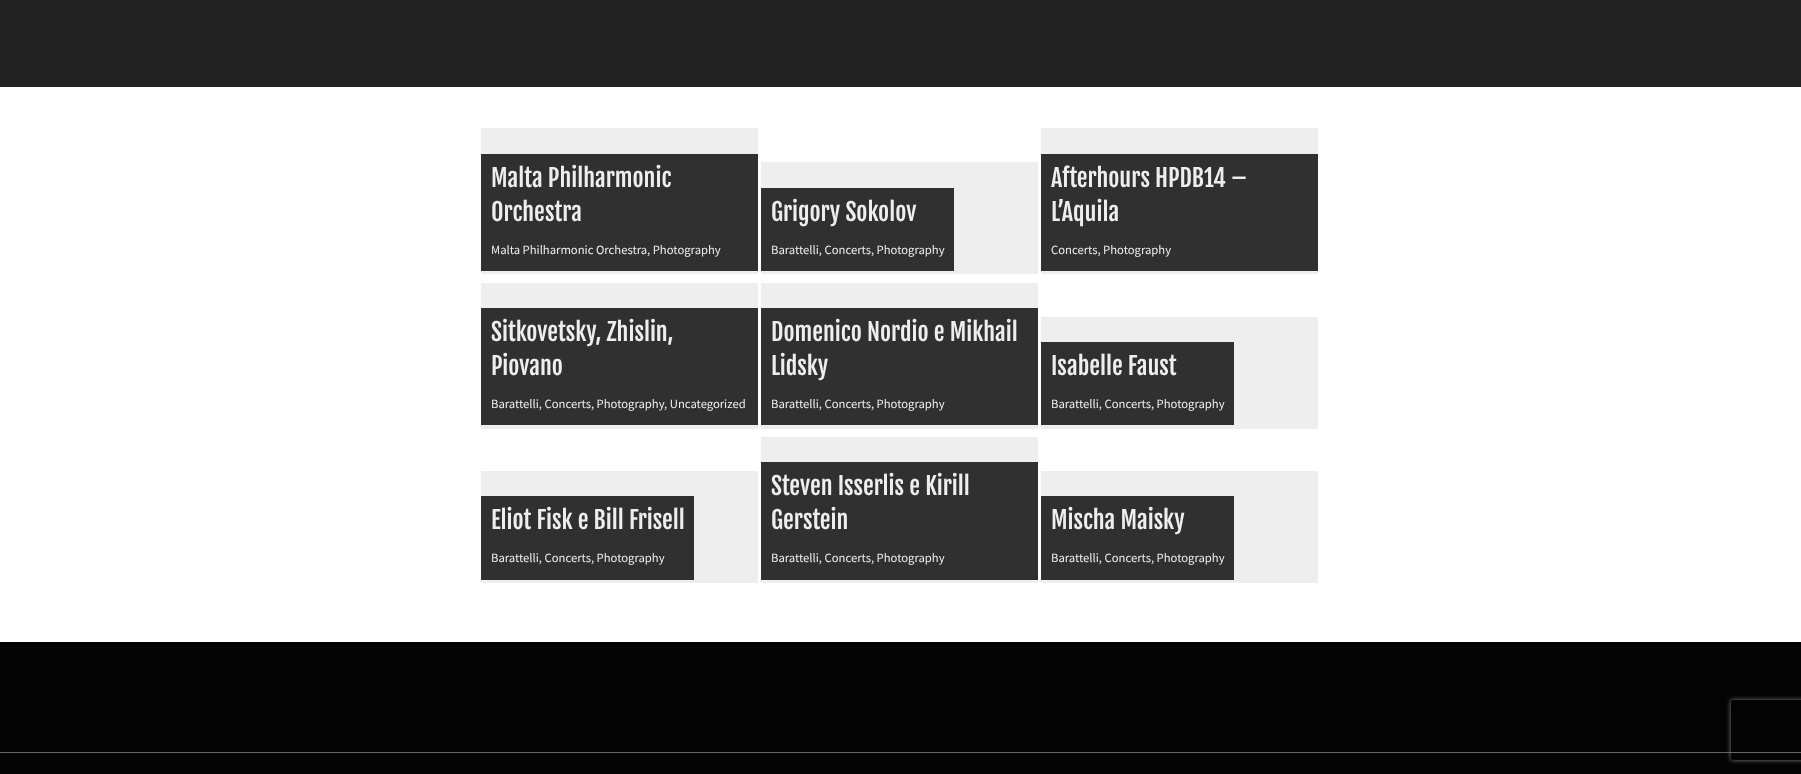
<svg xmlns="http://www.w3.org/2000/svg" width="1801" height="774">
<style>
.a{font:24px Fjalla One;fill:#eee}
.b{font:12.6px Source Sans Pro;fill:#eee}
</style>
<defs>
<clipPath id="clip1"><path d="M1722 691h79v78h-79zm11 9h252c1 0 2 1 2 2v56c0 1-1 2-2 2h-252c-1 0-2-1-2-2v-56c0-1 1-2 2-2z" clip-rule="evenodd"/></clipPath>
</defs>
<rect width="100%" height="100%" fill="#fff"/>
<path fill="#222" d="M0 0h1801v87H0z"/>
<path fill="#eee" d="M481 128h277v146H481z"/>
<path fill="#303030" d="M481 154h277v117H481z"/>
<path fill="#eee" d="M761 162h277v112H761z"/>
<path fill="#303030" d="M761 188h193v83H761z"/>
<path fill="#eee" d="M1041 128h277v146H1041z"/>
<path fill="#303030" d="M1041 154h277v117H1041z"/>
<path fill="#eee" d="M481 283h277v146H481z"/>
<path fill="#303030" d="M481 308h277v117H481z"/>
<path fill="#eee" d="M761 283h277v146H761z"/>
<path fill="#303030" d="M761 308h277v117H761z"/>
<path fill="#eee" d="M1041 317h277v112H1041z"/>
<path fill="#303030" d="M1041 342h193v83H1041z"/>
<path fill="#eee" d="M481 471h277v112H481z"/>
<path fill="#303030" d="M481 496h213v84H481z"/>
<path fill="#eee" d="M761 437h277v146H761z"/>
<path fill="#303030" d="M761 462h277v118H761z"/>
<path fill="#eee" d="M1041 471h277v112H1041z"/>
<path fill="#303030" d="M1041 496h193v84H1041z"/>
<path fill="#040404" d="M0 642h1801v132H0z"/>
<path fill="#636363" d="M0 752h1801v1H0z"/>
<g clip-path="url(#clip1)">
<rect fill="#808080" filter="blur(2.5px)" x="1731" y="700" width="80" height="60" rx="2"/>
</g>
<text class="a" x="491" y="187">Malta Philharmonic</text>
<text class="a" x="491" y="221">Orchestra</text>
<text class="b" x="491" y="254">Malta Philharmonic Orchestra, Photography</text>
<text class="a" x="771" y="221">Grigory Sokolov</text>
<text class="b" x="771" y="254">Barattelli, Concerts, Photography</text>
<text class="a" x="1051" y="187">Afterhours HPDB14 –</text>
<text class="a" x="1051" y="221">L’Aquila</text>
<text class="b" x="1051" y="254">Concerts, Photography</text>
<text class="a" x="491" y="341">Sitkovetsky, Zhislin,</text>
<text class="a" x="491" y="375">Piovano</text>
<text class="b" x="491" y="408">Barattelli, Concerts, Photography, Uncategorized</text>
<text class="a" x="771" y="341">Domenico Nordio e Mikhail</text>
<text class="a" x="771" y="375">Lidsky</text>
<text class="b" x="771" y="408">Barattelli, Concerts, Photography</text>
<text class="a" x="1051" y="375">Isabelle Faust</text>
<text class="b" x="1051" y="408">Barattelli, Concerts, Photography</text>
<text class="a" x="491" y="529">Eliot Fisk e Bill Frisell</text>
<text class="b" x="491" y="562">Barattelli, Concerts, Photography</text>
<text class="a" x="771" y="495">Steven Isserlis e Kirill</text>
<text class="a" x="771" y="529">Gerstein</text>
<text class="b" x="771" y="562">Barattelli, Concerts, Photography</text>
<text class="a" x="1051" y="529">Mischa Maisky</text>
<text class="b" x="1051" y="562">Barattelli, Concerts, Photography</text>
</svg>
